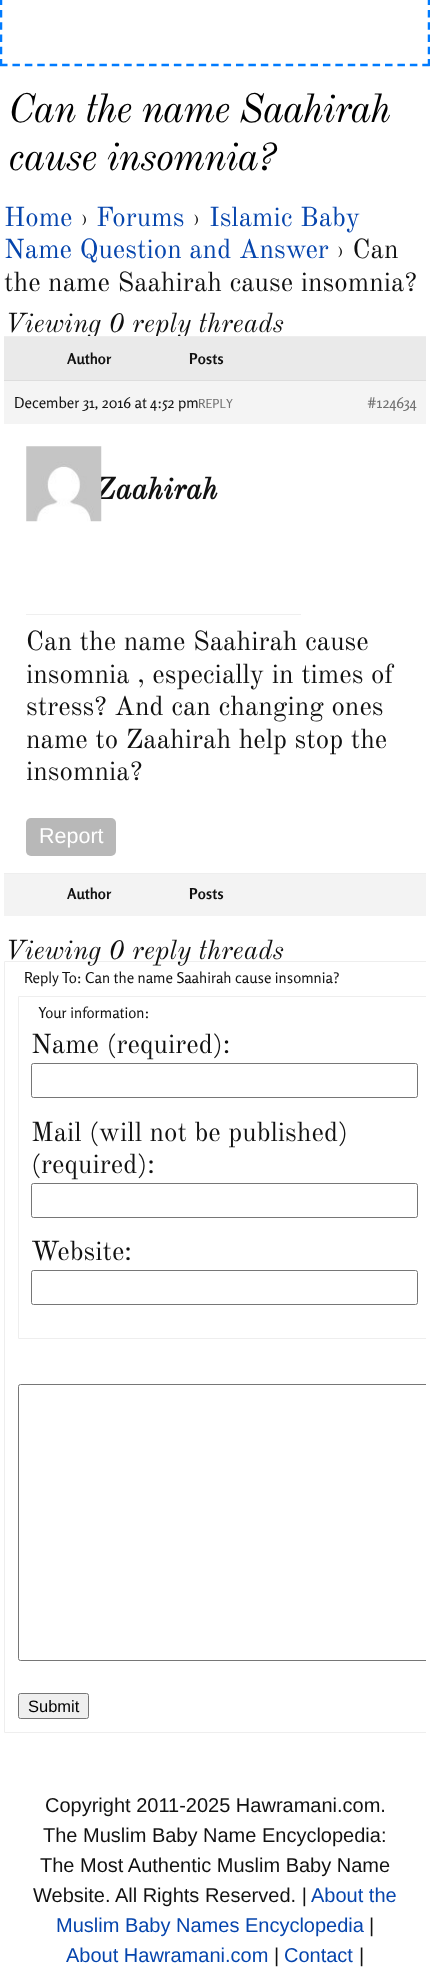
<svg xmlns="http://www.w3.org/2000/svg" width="430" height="1982">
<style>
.a{font:italic 40px Old Standard TT;letter-spacing:-1.25px;fill:#000}
.b{font:27px Old Standard TT;fill:#0645ad}
.c{font:27px Old Standard TT;fill:#111}
.d{font:italic 27px Old Standard TT;fill:#111}
.e{font:bold 15px Rosario;fill:#111}
.f{font:15px Rosario;fill:#111}
.g{font:12.5px Rosario;fill:#707070}
.h{font:15px Rosario;fill:#707070}
.i{font:italic bold 30px Old Standard TT;fill:#111}
.j{font:21.5px Liberation Sans;fill:#fff}
.k{font:16.5px Liberation Sans;fill:#000}
.l{font:20px Liberation Sans;fill:#111}
.m{font:20px Liberation Sans;fill:#0645ad}
</style>
<defs>
<clipPath id="clip1"><path d="M4 204h422v1541H4z"/></clipPath>
</defs>
<rect width="100%" height="100%" fill="#fff"/>
<path fill="none" stroke="#007bff" stroke-width="2.5" stroke-dasharray="7.5 4.77" d="M429-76v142"/>
<path fill="none" stroke="#007bff" stroke-width="2.5" stroke-dasharray="7.5 4.92" d="M0 65h430"/>
<path fill="none" stroke="#007bff" stroke-width="2.5" stroke-dasharray="7.5 4.77" d="M1-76v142"/>
<path fill="#f4f4f4" d="M4 381h422v43H4z"/>
<path fill="#ddd" d="M4 380h422v1H4z"/>
<path fill="#efefef" d="M26 614h275v1H26z"/>
<rect fill="#b8b8b8" x="26" y="818" width="90" height="38" rx="5"/>
<path fill="#f3f3f3" d="M4 874h422v42H4z"/>
<path fill="#eee" d="M4 873h422v1H4z"/>
<g clip-path="url(#clip1)">
<path fill="none" stroke="#eee" d="M4.5 961.5h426v771H4.5z"/>
<path fill="none" stroke="#eee" d="M18.5 996.5h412v342H18.5z"/>
</g>
<rect fill="none" stroke="#767676" x="31.5" y="1063.5" width="386" height="34" rx="2"/>
<rect fill="none" stroke="#767676" x="31.5" y="1183.5" width="386" height="34" rx="2"/>
<rect fill="none" stroke="#767676" x="31.5" y="1270.5" width="386" height="34" rx="2"/>
<g clip-path="url(#clip1)">
<rect fill="none" stroke="#767676" x="18.5" y="1384.5" width="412" height="276" rx="2"/>
</g>
<rect fill="#efefef" stroke="#767676" x="18.5" y="1693.5" width="70" height="25" rx="2"/>
<text class="a" x="8" y="122">Can the name Saahirah</text>
<text class="a" x="8" y="170">cause insomnia?</text>
<text class="b" x="4" y="226">Home</text>
<text class="c" x="80" y="226">›</text>
<text class="b" x="96" y="226">Forums</text>
<text class="c" x="192" y="226">›</text>
<text class="b" x="209" y="226">Islamic Baby</text>
<text class="b" x="4" y="258">Name Question and Answer</text>
<text class="c" x="336" y="258">› Can</text>
<text class="c" x="4" y="291">the name Saahirah cause insomnia?</text>
<text class="d" x="5" y="332">Viewing 0 reply threads</text>
<path fill="#eaeaea" d="M4 337h422v43H4z"/>
<path fill="#eee" d="M4 336h422v1H4z"/>
<text class="e" x="67" y="364">Author</text>
<text class="e" x="189" y="364">Posts</text>
<text class="f" x="14" y="408">December 31, 2016 at 4:52 pm</text>
<text class="g" x="198" y="408">REPLY</text>
<text class="h" x="367" y="408">#124634</text>
<text class="i" x="95" y="499">Zaahirah</text>
<image href="1.png" x="26" y="446" width="76" height="76"/>
<text class="c" x="26" y="650">Can the name Saahirah cause</text>
<text class="c" x="26" y="683">insomnia , especially in times of</text>
<text class="c" x="26" y="715">stress? And can changing ones</text>
<text class="c" x="26" y="748">name to Zaahirah help stop the</text>
<text class="c" x="26" y="780">insomnia?</text>
<text class="j" x="39" y="843">Report</text>
<text class="e" x="67" y="899">Author</text>
<text class="e" x="189" y="899">Posts</text>
<text class="d" x="5" y="959">Viewing 0 reply threads</text>
<text class="f" x="24" y="983">Reply To: Can the name Saahirah cause insomnia?</text>
<text class="f" x="38" y="1018">Your information:</text>
<text class="c" x="31" y="1053">Name (required):</text>
<text class="c" x="31" y="1141">Mail (will not be published)</text>
<text class="c" x="31" y="1173">(required):</text>
<text class="c" x="31" y="1260">Website:</text>
<text class="k" x="28" y="1712">Submit</text>
<text class="l" x="45" y="1812">Copyright 2011-2025 Hawramani.com.</text>
<text class="l" x="43" y="1842">The Muslim Baby Name Encyclopedia:</text>
<text class="l" x="40" y="1872">The Most Authentic Muslim Baby Name</text>
<text class="l" x="33" y="1902">Website. All Rights Reserved. |</text>
<text class="m" x="311" y="1902">About the</text>
<text class="m" x="56" y="1932">Muslim Baby Names Encyclopedia</text>
<text class="l" x="369" y="1932">|</text>
<text class="m" x="66" y="1962">About Hawramani.com</text>
<text class="l" x="274" y="1962">|</text>
<text class="m" x="284" y="1962">Contact</text>
<text class="l" x="359" y="1962">|</text>
</svg>
